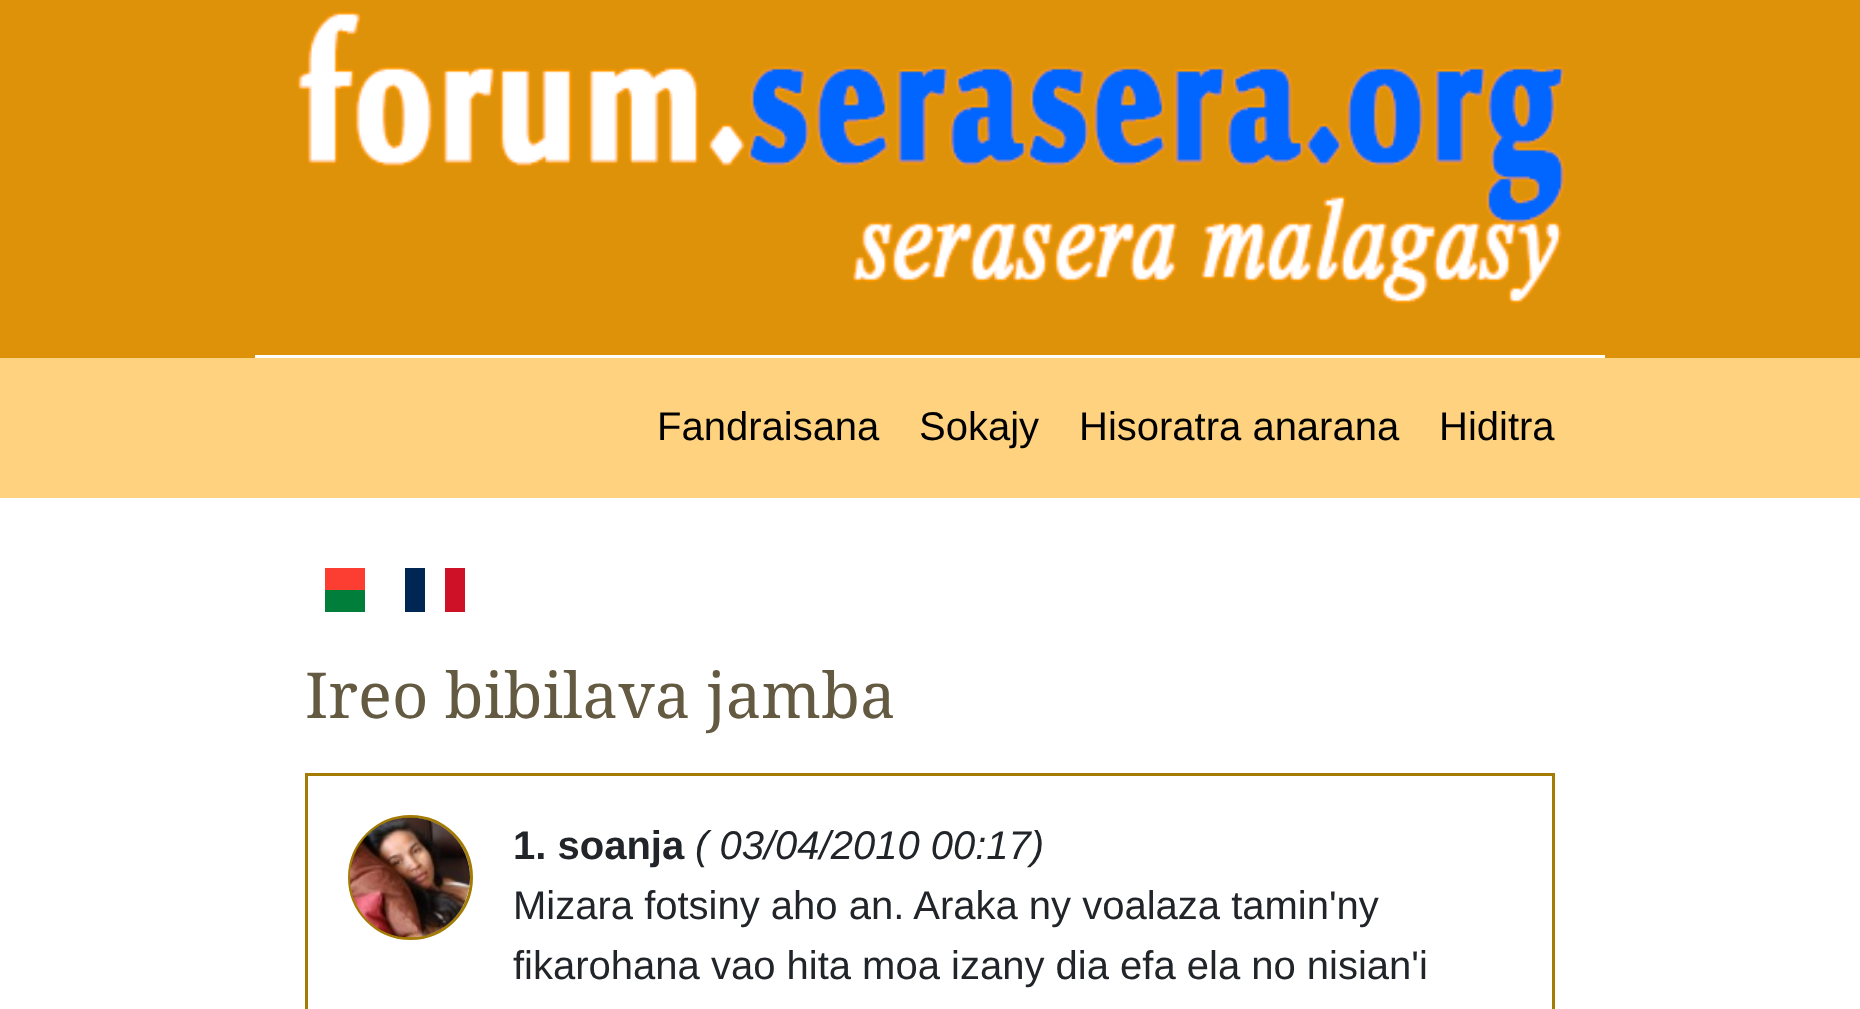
<svg xmlns="http://www.w3.org/2000/svg" width="1860" height="1009">
<style>
.a{font:40px Liberation Sans;fill:#000}
.b{font:63.25px Droid Serif;fill:#635a41}
.c{font:bold 40px Liberation Sans;fill:#212529}
.d{font:italic 40px Liberation Sans;fill:#212529}
.e{font:40px Liberation Sans;fill:#212529}
</style>
<rect width="100%" height="100%" fill="#fff"/>
<path fill="#dd9209" d="M0 0h1860v358H0z"/>
<path fill="#fff" d="M255 355h1350v3H255z"/>
<image href="1.png" x="296" y="11" width="1270" height="293"/>
<path fill="#ffd27f" d="M0 358h1860v140H0z"/>
<path fill="#fc3d32" d="M325 568h40v22H325z"/>
<path fill="#007e3a" d="M325 590h40v22H325z"/>
<path fill="#002654" d="M405 568h20v44H405z"/>
<path fill="#ce1126" d="M445 568h20v44H445z"/>
<path fill="none" stroke="#a47c05" stroke-width="3" d="M306.5 774.5h1247v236H306.5z"/>
<circle fill="none" stroke="#a47c05" stroke-width="3" cx="410.5" cy="877.5" r="61"/>
<image href="2.png" x="350" y="817" width="120" height="121"/>
<text class="a" x="657" y="440">Fandraisana</text>
<text class="a" x="919" y="440">Sokajy</text>
<text class="a" x="1079" y="440">Hisoratra anarana</text>
<text class="a" x="1439" y="440">Hiditra</text>
<text class="b" x="305" y="718">Ireo bibilava jamba</text>
<text class="c" x="513" y="859">1. soanja</text>
<text class="d" x="695" y="859">( 03/04/2010 00:17)</text>
<text class="e" x="513" y="919">Mizara fotsiny aho an. Araka ny voalaza tamin'ny</text>
<text class="e" x="513" y="979">fikarohana vao hita moa izany dia efa ela no nisian'i</text>
</svg>
